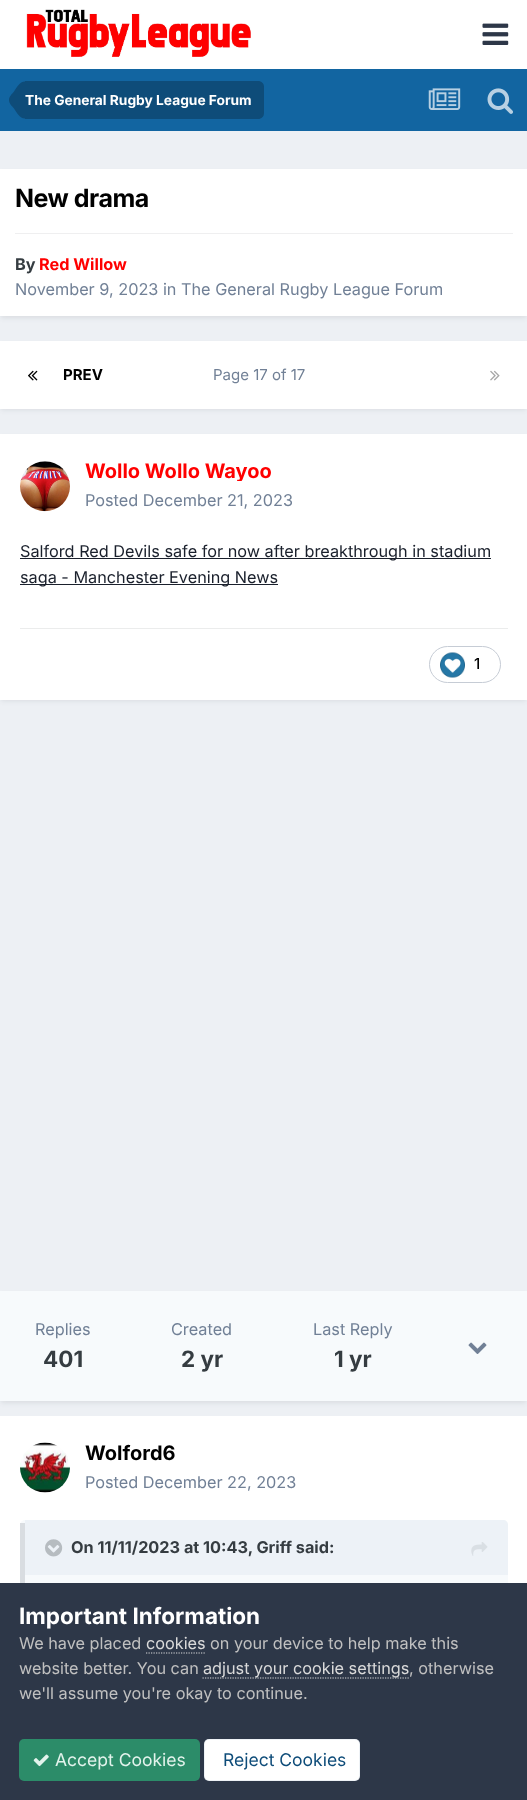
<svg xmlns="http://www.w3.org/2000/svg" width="527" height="1800">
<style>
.a{font:bold 13.75px Inter;fill:#fff}
.b{font:bold 25px Inter;letter-spacing:-0.5px;fill:#000}
.c{font:bold 16.25px Inter;fill:#353c41}
.d{font:bold 16.25px Inter;fill:#f00}
.e{font:16.25px Inter;fill:#718096}
.f{font:bold 15px Inter;fill:#000}
.g{font:15px Inter;fill:#718096}
.h{font:bold 20px Inter;fill:#f00}
.i{font:16.25px Inter;fill:#1a202c}
.j{font:500 15px Inter;fill:#000}
.k{font:bold 22.5px Inter;fill:#353c41}
.l{font:bold 20px Inter;fill:#000}
.m{font:bold 22.5px Inter;fill:#fff}
.n{font:16.25px Inter;fill:#c0c0c0}
.o{font:16.25px Inter;fill:#dadada}
.p{font:17.5px Inter;fill:#e3f3ec}
.q{font:17.5px Inter;fill:#0e4c79}
</style>
<defs>
<clipPath id="clip1"><path d="M85 459h186v22H85z"/></clipPath>
</defs>
<rect width="100%" height="100%" fill="#edf0f4"/>
<path fill="#fff" d="M0 0h527v69H0z"/>
<image href="1.png" x="26" y="9" width="225" height="48"/>
<image href="2.png" x="482" y="23" width="27" height="22"/>
<path fill="#1265a1" d="M0 69h527v62H0z"/>
<path fill="#0e4c79" d="M25 81h233c3.5 0 6 2.5 6 6v26c0 3.5-2.5 6-6 6h-233z"/>
<path fill="#0e4c79" d="M25 100v18.5c-5.5 0-8.5-6.5-11-10c-2-2.5-5-5-5-8.5zm0 0h-16c0-3.5 3-6 5-8.5c2.5-3.5 5.5-10 11-10z"/>
<image href="3.png" x="428" y="88" width="33" height="22"/>
<image href="4.png" x="487" y="88" width="26" height="26"/>
<path fill="#2d37481a" filter="blur(2.5px)" d="M1 173h525v145H1z"/>
<path fill="#fff" d="M0 169h527v147H0z"/>
<path fill="#efeff0" d="M15 233h498v1H15z"/>
<path fill="#2d37481a" filter="blur(2.5px)" d="M1 345h525v65H1z"/>
<path fill="#fff" d="M0 341h527v68H0z"/>
<image href="5.png" x="28" y="370" width="10" height="11"/>
<image href="6.png" x="490" y="370" width="10" height="11"/>
<path fill="#2d37481a" filter="blur(2.5px)" d="M1 438h525v263H1z"/>
<path fill="#fff" d="M0 434h527v266H0z"/>
<image href="7.png" x="20" y="461" width="50" height="51"/>
<path fill="#1a202c" d="M20 558h471v1H20z"/>
<path fill="#1a202c" d="M20 584h258v1H20z"/>
<path fill="#ebecec" d="M20 628h488v1H20z"/>
<rect fill="none" stroke="#c6ccd5" x="429.5" y="646.5" width="71" height="36" rx="18"/>
<image href="8.png" x="440" y="652" width="25" height="26"/>
<path fill="#2d37481a" filter="blur(2.5px)" d="M1 1295h525v108H1z"/>
<path fill="#f7fafc" d="M0 1291h527v110H0z"/>
<image href="9.png" x="468" y="1342" width="19" height="12"/>
<path fill="#fff" d="M0 1416h527v167H0z"/>
<image href="10.png" x="20" y="1442" width="50" height="51"/>
<rect fill="#f7fafc" x="20" y="1520" width="488" height="159" rx="5"/>
<path fill="#d9dde1" d="M20 1523h5v60H20z"/>
<path fill="#edf2f7" d="M25 1520h478c3 0 5 2 5 5v50h-483z"/>
<image href="11.png" x="45" y="1539" width="18" height="18"/>
<image href="12.png" x="471" y="1542" width="17" height="14"/>
<path fill="#2d3748" d="M0 1583h527v217H0z"/>
<path fill="none" stroke="#dadada" stroke-width="1.2" stroke-dasharray="1.25 1.25" d="M146 1653h59"/>
<path fill="none" stroke="#dadada" stroke-width="1.2" stroke-dasharray="1.25 1.25" d="M202.5 1678h207.5"/>
<rect fill="#2c8c69" x="19" y="1739" width="181" height="42" rx="5"/>
<image href="13.png" x="33" y="1754" width="16" height="13"/>
<rect fill="#fff" x="204" y="1739" width="156" height="42" rx="5"/>
<rect fill="none" stroke="#0e4c7912" x="204.5" y="1739.5" width="155" height="41" rx="4.5"/>
<text class="a" x="25" y="105">The General Rugby League Forum</text>
<text class="b" x="15" y="207">New drama</text>
<text class="c" x="15" y="270">By</text>
<text class="d" x="39" y="270">Red Willow</text>
<text class="e" x="15" y="295">November 9, 2023 in The General Rugby League Forum</text>
<text class="f" x="63" y="380">PREV</text>
<text class="g" x="213" y="380">Page 17 of 17</text>
<g clip-path="url(#clip1)">
<text class="h" x="85" y="478">Wollo Wollo Wayoo</text>
</g>
<text class="e" x="85" y="506">Posted December 21, 2023</text>
<text class="i" x="20" y="557">Salford Red Devils safe for now after breakthrough in stadium</text>
<text class="i" x="20" y="583">saga - Manchester Evening News</text>
<text class="j" x="474" y="669">1</text>
<text class="e" x="35" y="1335">Replies</text>
<text class="k" x="43" y="1367">401</text>
<text class="e" x="171" y="1335">Created</text>
<text class="k" x="181" y="1367">2 yr</text>
<text class="e" x="313" y="1335">Last Reply</text>
<text class="k" x="334" y="1367">1 yr</text>
<text class="l" x="85" y="1460">Wolford6</text>
<text class="e" x="85" y="1488">Posted December 22, 2023</text>
<text class="c" x="71" y="1553">On 11/11/2023 at 10:43, Griff said:</text>
<text class="m" x="19" y="1624">Important Information</text>
<text class="n" x="19" y="1649">We have placed</text>
<text class="o" x="146" y="1649">cookies</text>
<text class="n" x="210" y="1649">on your device to help make this</text>
<text class="n" x="19" y="1674">website better. You can</text>
<text class="o" x="203" y="1674">adjust your cookie settings</text>
<text class="n" x="409" y="1674">, otherwise</text>
<text class="n" x="19" y="1699">we'll assume you're okay to continue.</text>
<text class="p" x="55" y="1766">Accept Cookies</text>
<text class="q" x="223" y="1766">Reject Cookies</text>
</svg>
